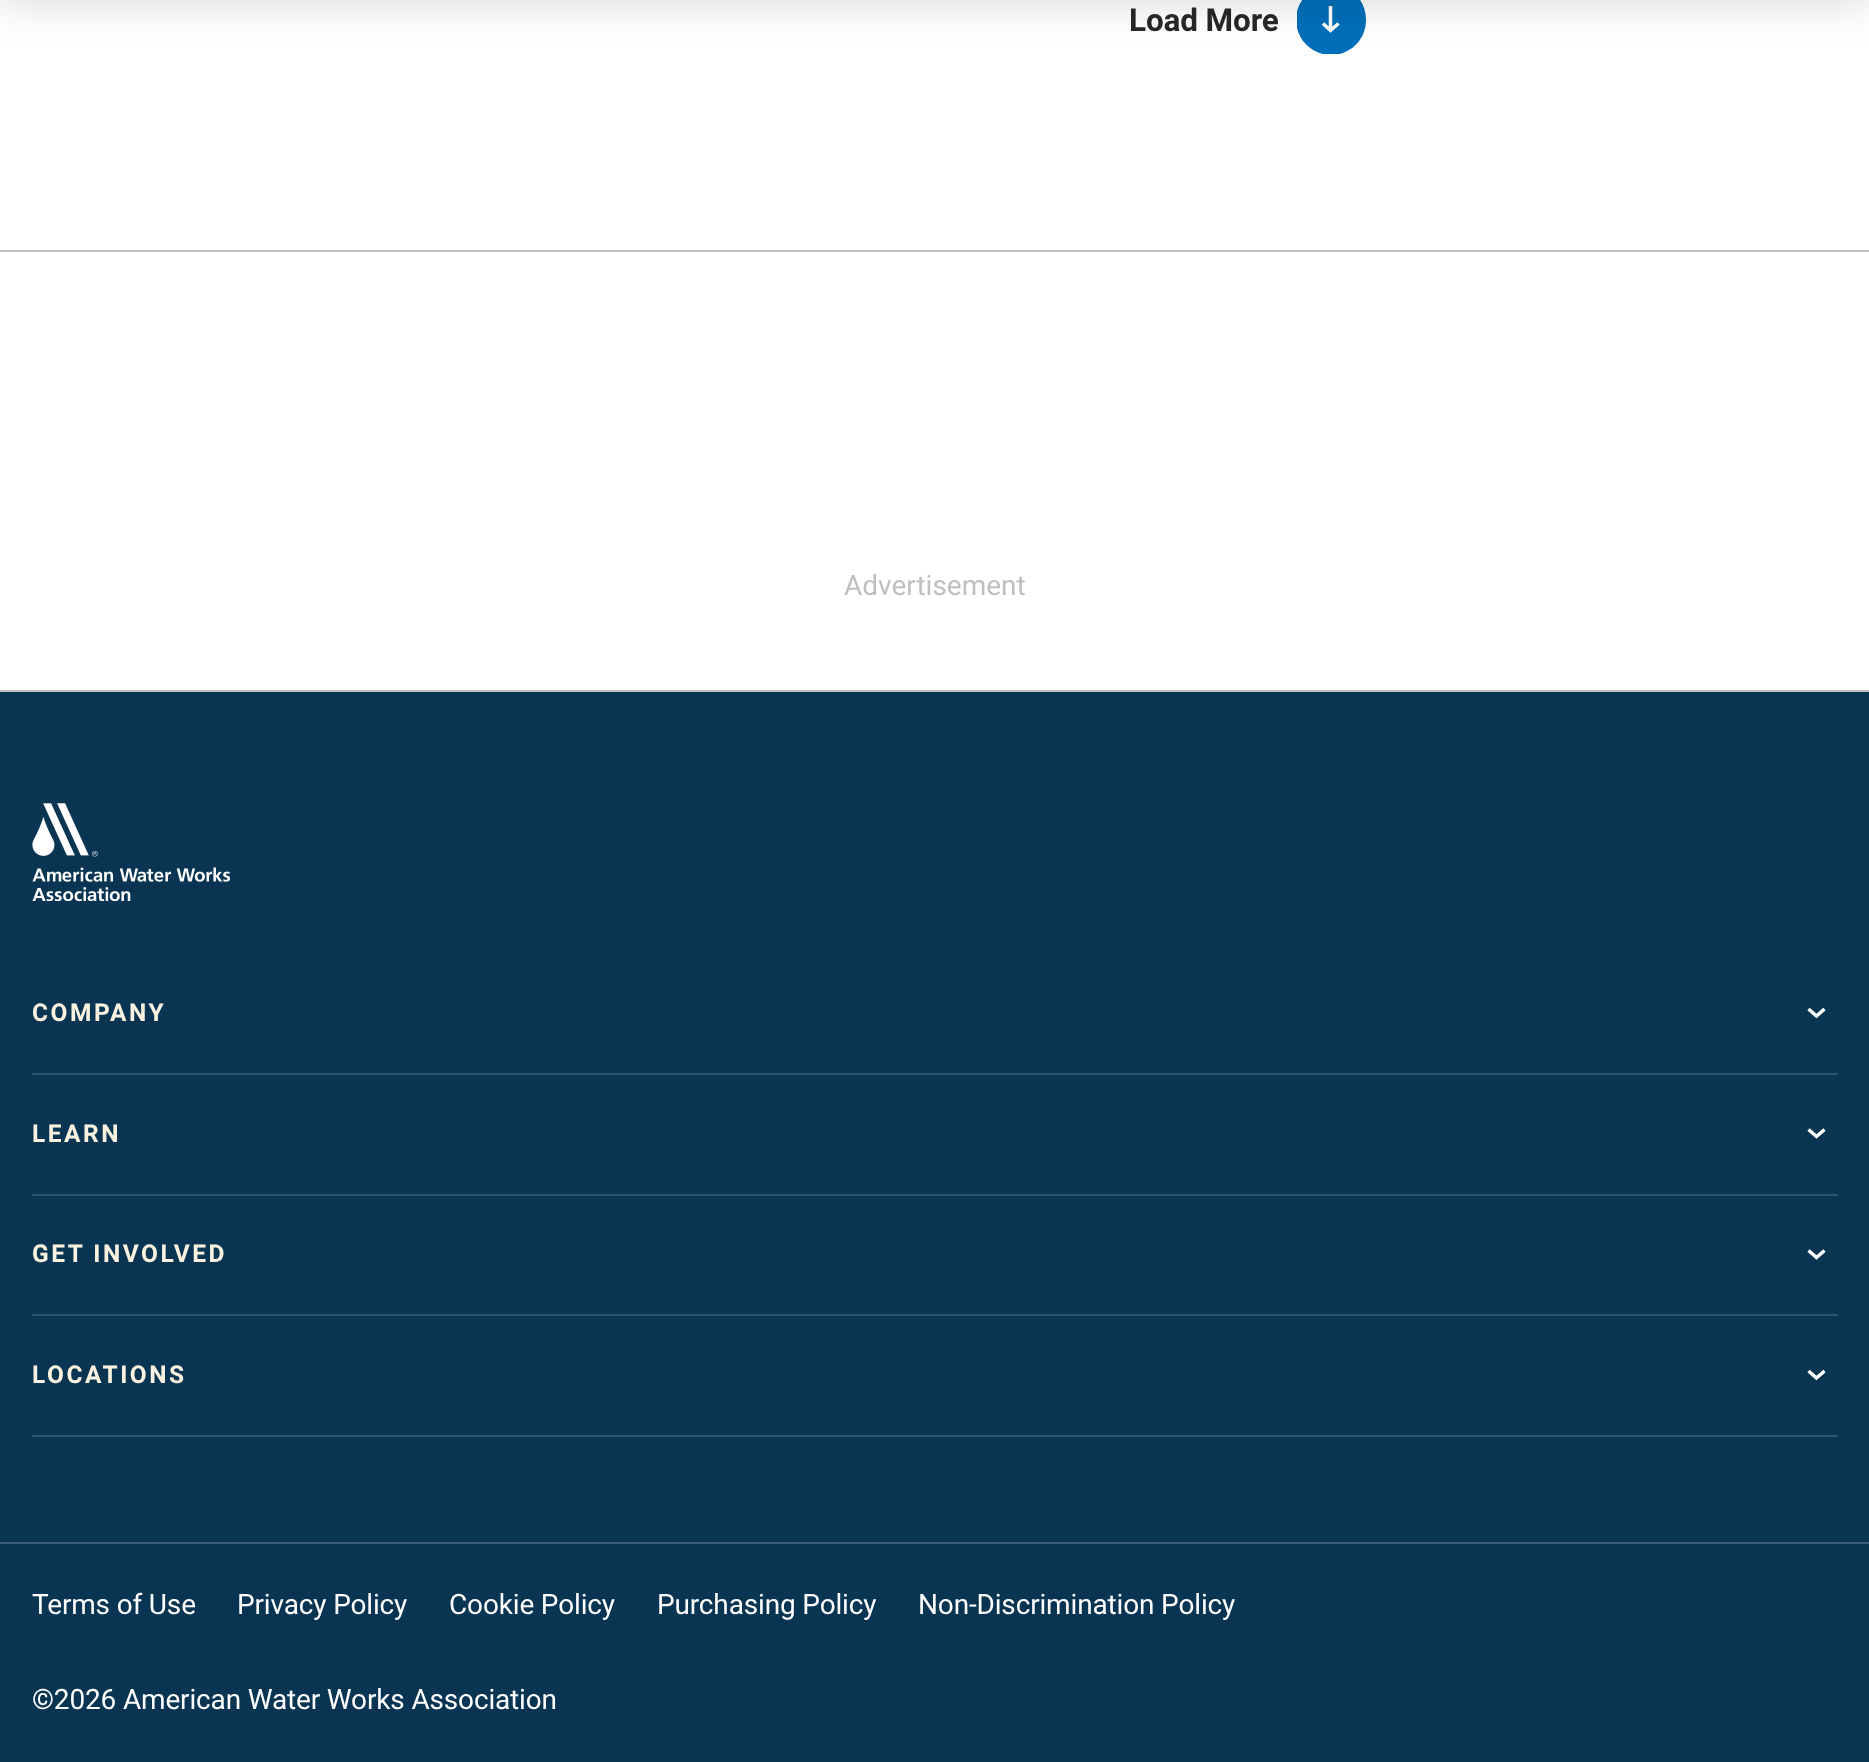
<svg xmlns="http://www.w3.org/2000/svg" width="1869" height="1762">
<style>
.a{font:bold 31.5px Roboto;letter-spacing:-0.15px;fill:#272626}
.b{font:28px Roboto;fill:#c0bfbf}
.c{font:bold 24.5px Roboto;letter-spacing:2.5px;fill:#fbf3df}
.d{font:28px Roboto;letter-spacing:-0.15px;fill:#fff}
</style>
<defs>
<clipPath id="clip1"><path d="M1297 0h70v54H1297z"/></clipPath>
</defs>
<rect width="100%" height="100%" fill="#fff"/>
<g clip-path="url(#clip1)">
<path fill="#006fb9" d="M1366 20c0 19-15 35-35 35c-19 0-35-16-35-35c0-20 16-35 35-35c20 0 35 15 35 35z"/>
</g>
<path fill="none" stroke="#fff" stroke-width="3.5" d="M1338.5 23.5l-8 7l-7.5-7m7.5-17.5v23.5"/>
<path fill="#0000002b" filter="blur(23px)" d="M0 -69h1869v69H0z"/>
<path fill="#c0bfbf" d="M0 250h1869v2H0z"/>
<path fill="#c0bfbf" d="M0 690h1869v2H0z"/>
<path fill="#093553" d="M0 692h1869v1070H0z"/>
<image href="1.png" x="32" y="803" width="198" height="98"/>
<path fill="none" stroke="#fff" stroke-width="3.5" d="M1824.5 1009l-8 7l-8-7"/>
<path fill="#2e536d" d="M32 1073h1806v2H32z"/>
<path fill="none" stroke="#fff" stroke-width="3.5" d="M1824.5 1129.5l-8 7l-8-7"/>
<path fill="#2e536d" d="M32 1194h1806v2H32z"/>
<path fill="none" stroke="#fff" stroke-width="3.5" d="M1824.5 1250.5l-8 7l-8-7"/>
<path fill="#2e536d" d="M32 1314h1806v2H32z"/>
<path fill="#2e536d" d="M32 1435h1806v2H32z"/>
<path fill="none" stroke="#fff" stroke-width="3.5" d="M1824.5 1371l-8 7l-8-7"/>
<path fill="#3a5d75" d="M0 1542h1869v2H0z"/>
<text class="a" x="1129" y="31">Load More</text>
<text class="b" x="844" y="595">Advertisement</text>
<text class="c" x="32" y="1021">COMPANY</text>
<text class="c" x="32" y="1142">LEARN</text>
<text class="c" x="32" y="1262">GET INVOLVED</text>
<text class="c" x="32" y="1383">LOCATIONS</text>
<text class="d" x="32" y="1614">Terms of Use</text>
<text class="d" x="237" y="1614">Privacy Policy</text>
<text class="d" x="449" y="1614">Cookie Policy</text>
<text class="d" x="657" y="1614">Purchasing Policy</text>
<text class="d" x="918" y="1614">Non-Discrimination Policy</text>
<text class="d" x="32" y="1709">©2026 American Water Works Association</text>
</svg>
